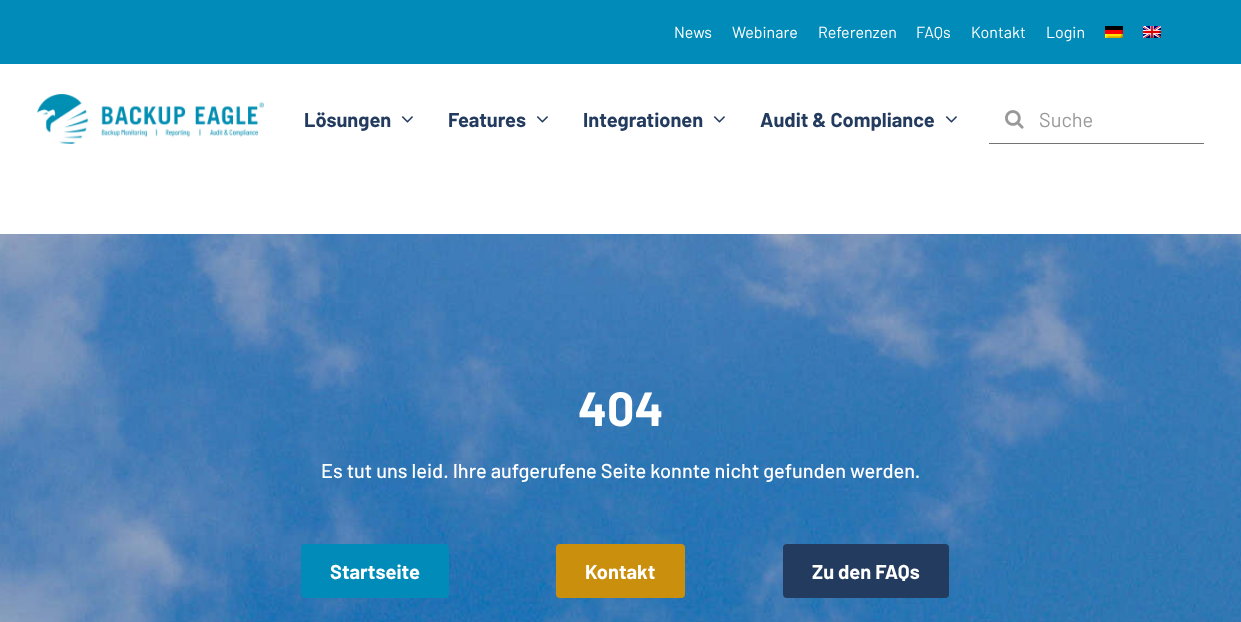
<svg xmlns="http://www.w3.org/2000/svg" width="1241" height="622">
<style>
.a{font:16px Barlow;fill:#fff}
.b{font:bold 20px Barlow;fill:#233b5e}
.c{font:20px Barlow;fill:#999}
.d{font:bold 48px Barlow;fill:#fff}
.e{font:500 20px Barlow;fill:#fff}
.f{font:bold 20px Barlow;fill:#fff}
</style>
<rect width="100%" height="100%" fill="#fff"/>
<path fill="#008bb8" d="M0 0h1241v64H0z"/>
<image href="1.png" x="1105" y="26" width="18" height="12"/>
<image href="2.png" x="1143" y="26" width="18" height="12"/>
<image href="3.png" x="37" y="94" width="227" height="50"/>
<image href="4.png" x="401" y="116" width="12" height="7"/>
<image href="4.png" x="536" y="116" width="12" height="7"/>
<image href="4.png" x="713" y="116" width="12" height="7"/>
<image href="4.png" x="945" y="116" width="12" height="7"/>
<image href="5.png" x="1005" y="110" width="19" height="19"/>
<path fill="#747474" d="M989 143h215v1H989z"/>
<image href="6.png" x="0" y="234" width="1241" height="388"/>
<rect fill="#008bb8" x="301" y="544" width="148" height="54" rx="4"/>
<rect fill="#ca8f0d" x="556" y="544" width="129" height="54" rx="4"/>
<rect fill="#233b5e" x="783" y="544" width="166" height="54" rx="4"/>
<text class="a" x="674" y="38">News</text>
<text class="a" x="732" y="38">Webinare</text>
<text class="a" x="818" y="38">Referenzen</text>
<text class="a" x="916" y="38">FAQs</text>
<text class="a" x="971" y="38">Kontakt</text>
<text class="a" x="1046" y="38">Login</text>
<text class="b" x="304" y="127">Lösungen</text>
<text class="b" x="448" y="127">Features</text>
<text class="b" x="583" y="127">Integrationen</text>
<text class="b" x="760" y="127">Audit &amp; Compliance</text>
<text class="c" x="1039" y="127">Suche</text>
<text class="d" x="578" y="426">404</text>
<text class="e" x="321" y="478">Es tut uns leid. Ihre aufgerufene Seite konnte nicht gefunden werden.</text>
<text class="f" x="330" y="579">Startseite</text>
<text class="f" x="585" y="579">Kontakt</text>
<text class="f" x="812" y="579">Zu den FAQs</text>
</svg>
